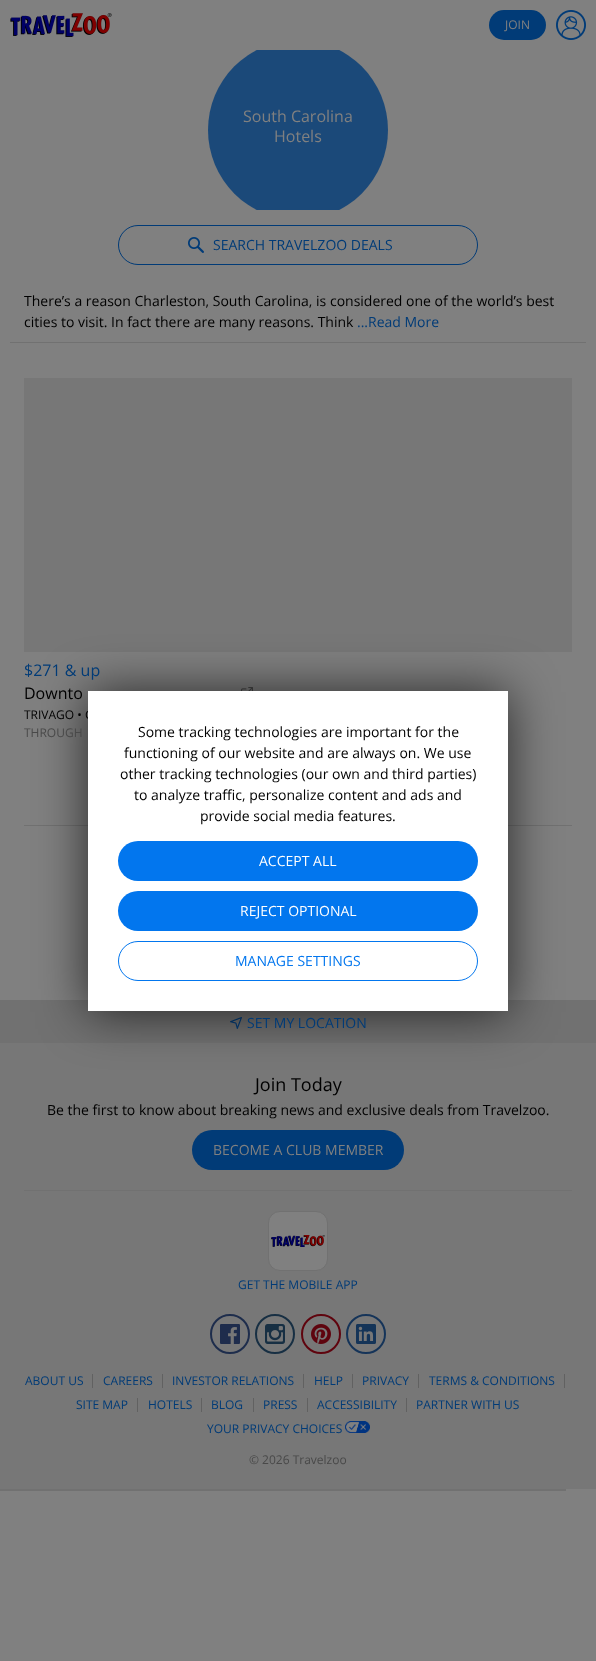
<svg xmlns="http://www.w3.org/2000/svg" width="596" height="1661">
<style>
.a{font:12px Open Sans;fill:#808080}
.b{font:16px Open Sans;fill:#808080}
.c{font:14px Open Sans;fill:#013b77}
.d{font:14px Open Sans;fill:#000}
.e{font:16px Open Sans;fill:#013b77}
.f{font:16px Open Sans;fill:#000}
.g{font:12px Open Sans;fill:#000}
.h{font:12px Open Sans;fill:#494949}
.i{font:14px Open Sans;fill:#fff}
.j{font:14px Open Sans;fill:#0276ee}
.k{font:18px Open Sans;fill:#000}
.l{font:14px Open Sans;fill:#808080}
.m{font:12px Open Sans;fill:#013b77}
</style>
<defs>
<clipPath id="clip1"><path d="M0 50h596v160H0z"/></clipPath>
</defs>
<rect width="100%" height="100%" fill="#808080"/>
<image href="1.png" x="10" y="13" width="102" height="24"/>
<rect fill="#013b77" x="489" y="10" width="57" height="30" rx="15"/>
<image href="2.png" x="556" y="10" width="30" height="30"/>
<g clip-path="url(#clip1)">
<circle fill="#1b4979" cx="298" cy="130" r="90"/>
</g>
<rect fill="none" stroke="#013b77" x="118.5" y="225.5" width="359" height="39" rx="19.5"/>
<image href="3.png" x="188" y="237" width="16" height="16"/>
<path fill="#717171" d="M10 342h576v1H10z"/>
<path fill="#777" d="M24 378h548v274H24z"/>
<image href="4.png" x="241" y="687" width="12" height="4"/>
<path fill="#717171" d="M24 825h64v1H24z"/>
<path fill="#717171" d="M508 825h64v1H508z"/>
<path fill="#777" d="M0 1043h596v446H0z"/>
<path fill="#717171" d="M0 1000h596v43H0z"/>
<image href="5.png" x="230" y="1017" width="12" height="12"/>
<path fill="#000000b3" filter="blur(25px)" d="M88 692h420v320H88z"/>
<path fill="#717171" d="M24 1190h548v1H24z"/>
<rect fill="#013b77" x="192" y="1130" width="212" height="40" rx="20"/>
<rect fill="#808080" stroke="#717171" x="268.5" y="1211.5" width="59" height="59" rx="11.5"/>
<image href="6.png" x="271" y="1235" width="54" height="12"/>
<circle fill="none" stroke="#1e2d4c" stroke-width="2" cx="230" cy="1334" r="19"/>
<image href="7.png" x="220" y="1324" width="20" height="20"/>
<circle fill="none" stroke="#172f43" stroke-width="2" cx="275" cy="1334" r="19"/>
<image href="8.png" x="265" y="1324" width="20" height="20"/>
<circle fill="none" stroke="#5f040e" stroke-width="2" cx="321" cy="1334" r="19"/>
<image href="9.png" x="311" y="1324" width="20" height="20"/>
<circle fill="none" stroke="#153459" stroke-width="2" cx="366" cy="1334" r="19"/>
<image href="10.png" x="356" y="1324" width="20" height="20"/>
<path fill="#616161" d="M92 1374h1v14H92z"/>
<path fill="#616161" d="M162 1374h1v14H162z"/>
<path fill="#616161" d="M303 1374h1v14H303z"/>
<path fill="#616161" d="M352 1374h1v14H352z"/>
<path fill="#616161" d="M418 1374h1v14H418z"/>
<path fill="#616161" d="M564 1374h1v14H564z"/>
<path fill="#616161" d="M137 1398h1v14H137z"/>
<path fill="#616161" d="M201 1398h1v14H201z"/>
<path fill="#616161" d="M253 1398h1v14H253z"/>
<path fill="#616161" d="M307 1398h1v14H307z"/>
<path fill="#616161" d="M406 1398h1v14H406z"/>
<image href="11.png" x="345" y="1421" width="25" height="12"/>
<path fill="#717171" d="M0 1489h566v2H0z"/>
<text class="a" x="505" y="29">JOIN</text>
<text class="b" x="243" y="122">South Carolina</text>
<text class="b" x="274" y="142">Hotels</text>
<text class="c" x="213" y="250">SEARCH TRAVELZOO DEALS</text>
<text class="d" x="24" y="306">There’s a reason Charleston, South Carolina, is considered one of the world’s best</text>
<text class="d" x="24" y="327">cities to visit. In fact there are many reasons. Think</text>
<text class="c" x="357" y="327">...Read More</text>
<text class="e" x="24" y="676">$271 &amp; up</text>
<text class="f" x="24" y="699">Downto</text>
<text class="g" x="24" y="719">TRIVAGO • C</text>
<text class="h" x="24" y="737">THROUGH</text>
<path fill="#fff" d="M88 691h420v320H88z"/>
<text class="d" x="138" y="737">Some tracking technologies are important for the</text>
<text class="d" x="124" y="758">functioning of our website and are always on. We use</text>
<text class="d" x="120" y="779">other tracking technologies (our own and third parties)</text>
<text class="d" x="134" y="800">to analyze traffic, personalize content and ads and</text>
<text class="d" x="200" y="821">provide social media features.</text>
<rect fill="#0276ee" x="118" y="841" width="360" height="40" rx="20"/>
<text class="i" x="259" y="866">ACCEPT ALL</text>
<rect fill="#0276ee" x="118" y="891" width="360" height="40" rx="20"/>
<text class="i" x="240" y="916">REJECT OPTIONAL</text>
<rect fill="none" stroke="#0276ee" x="118.5" y="941.5" width="359" height="39" rx="19.5"/>
<text class="j" x="235" y="966">MANAGE SETTINGS</text>
<text class="c" x="247" y="1028">SET MY LOCATION</text>
<text class="k" x="255" y="1091">Join Today</text>
<text class="d" x="47" y="1115">Be the first to know about breaking news and exclusive deals from Travelzoo.</text>
<text class="l" x="213" y="1155">BECOME A CLUB MEMBER</text>
<text class="m" x="238" y="1289">GET THE MOBILE APP</text>
<text class="m" x="25" y="1385">ABOUT US</text>
<text class="m" x="103" y="1385">CAREERS</text>
<text class="m" x="172" y="1385">INVESTOR RELATIONS</text>
<text class="m" x="314" y="1385">HELP</text>
<text class="m" x="362" y="1385">PRIVACY</text>
<text class="m" x="429" y="1385">TERMS &amp; CONDITIONS</text>
<text class="m" x="76" y="1409">SITE MAP</text>
<text class="m" x="148" y="1409">HOTELS</text>
<text class="m" x="211" y="1409">BLOG</text>
<text class="m" x="263" y="1409">PRESS</text>
<text class="m" x="317" y="1409">ACCESSIBILITY</text>
<text class="m" x="416" y="1409">PARTNER WITH US</text>
<text class="m" x="207" y="1433">YOUR PRIVACY CHOICES</text>
<text class="h" x="249" y="1464">© 2026 Travelzoo</text>
</svg>
